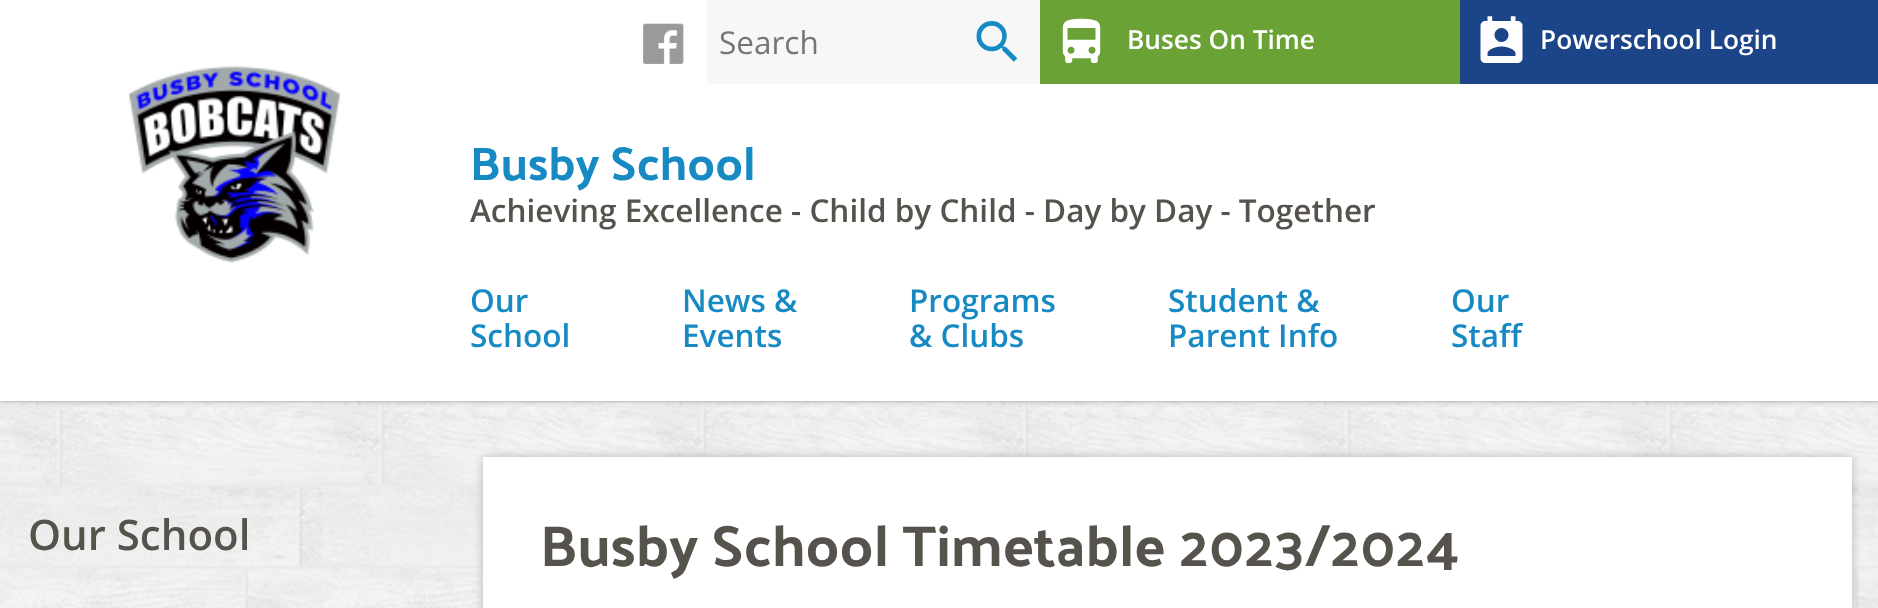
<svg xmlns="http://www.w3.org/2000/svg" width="1878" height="608">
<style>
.a{font:31.5px Open Sans;fill:#757575}
.b{font:600 26.25px Open Sans;fill:#fff}
.c{font:47.25px Palanquin Dark;fill:#178ac4}
.d{font:600 31.5px Open Sans;fill:#56524c}
.e{font:600 31.5px Open Sans;fill:#178ac4}
.f{font:600 42px Open Sans;fill:#56524c}
.g{font:57.75px Palanquin Dark;fill:#56524c}
</style>
<rect width="100%" height="100%" fill="#fff"/>
<image href="1.png" x="0" y="401" width="1878" height="207"/>
<path fill="#33333380" filter="blur(2px)" d="M0 0h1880v401H0z"/>
<path fill="#fff" d="M0 0h1878v401H0z"/>
<image href="2.png" x="128" y="66" width="213" height="197"/>
<image href="3.png" x="643" y="23" width="41" height="41"/>
<path fill="#f7f7f7" d="M707 0h333v84H707z"/>
<image href="4.png" x="976" y="21" width="42" height="41"/>
<path fill="#6aa235" d="M1040 0h420v84H1040z"/>
<image href="5.png" x="1062" y="18" width="39" height="45"/>
<path fill="#1c4489" d="M1460 0h418v84H1460z"/>
<image href="6.png" x="1480" y="16" width="43" height="47"/>
<path fill="#3333334d" filter="blur(5px)" d="M483 457h1369v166H483z"/>
<path fill="#fff" d="M483 457h1369v151H483z"/>
<text class="a" x="719" y="54">Search</text>
<text class="b" x="1127" y="49">Buses On Time</text>
<text class="b" x="1540" y="49">Powerschool Login</text>
<text class="c" x="470" y="180">Busby School</text>
<text class="d" x="470" y="222">Achieving Excellence - Child by Child - Day by Day - Together</text>
<text class="e" x="470" y="312">Our</text>
<text class="e" x="470" y="347">School</text>
<text class="e" x="682" y="312">News &amp;</text>
<text class="e" x="682" y="347">Events</text>
<text class="e" x="909" y="312">Programs</text>
<text class="e" x="909" y="347">&amp; Clubs</text>
<text class="e" x="1168" y="312">Student &amp;</text>
<text class="e" x="1168" y="347">Parent Info</text>
<text class="e" x="1451" y="312">Our</text>
<text class="e" x="1451" y="347">Staff</text>
<text class="f" x="28" y="550">Our School</text>
<text class="g" x="540" y="566">Busby School Timetable 2023/2024</text>
</svg>
